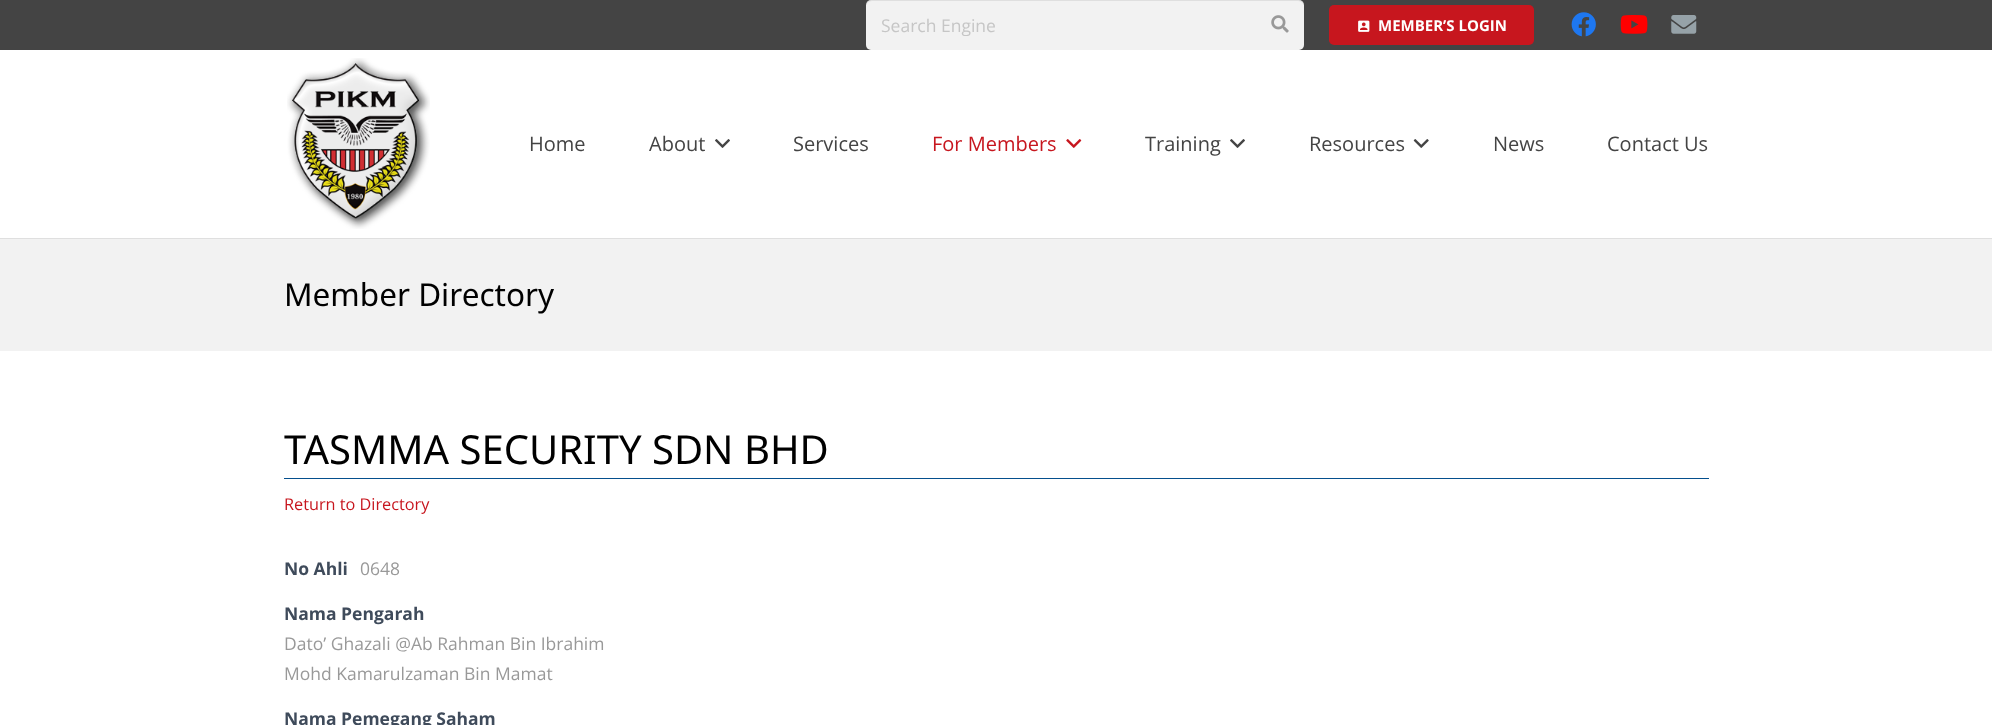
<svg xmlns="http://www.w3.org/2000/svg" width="1992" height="725">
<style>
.a{font:17.5px Open Sans;fill:#c6c6c6}
.b{font:bold 15px Open Sans;fill:#fff}
.c{font:20px Open Sans;fill:#444}
.d{font:20px Open Sans;fill:#c7161e}
.e{font:31.5px Noto Sans;fill:#000}
.f{font:40px Noto Sans;fill:#000}
.g{font:16.25px Open Sans;fill:#c7161e}
.h{font:bold 17.5px Open Sans;fill:#3f4b5b}
.i{font:17.5px Open Sans;fill:#999}
</style>
<defs>
<clipPath id="clip1"><path d="M881 13h374v23H881z"/></clipPath>
</defs>
<rect width="100%" height="100%" fill="#fff"/>
<path fill="#444" d="M0 0h1992v50H0z"/>
<rect fill="#f2f2f2" x="866" width="438" height="50" rx="5"/>
<path fill="#00000014" d="M872 1h426c3 0 6 3 6 5c0-3-2-6-5-6h-428c-3 0-5 3-5 6c0-2 3-5 6-5z"/>
<image href="1.png" x="1271" y="15" width="18" height="18"/>
<rect fill="#c7161e" x="1329" y="5" width="205" height="40" rx="5"/>
<image href="2.png" x="1358" y="20" width="12" height="12"/>
<image href="3.png" x="1571" y="12" width="25" height="25"/>
<image href="4.png" x="1620" y="15" width="28" height="19"/>
<image href="5.png" x="1671" y="15" width="26" height="19"/>
<path fill="#dfdfdf" d="M0 238v1h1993v-188h-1v187z"/>
<image href="6.png" x="287" y="58" width="143" height="171"/>
<image href="7.png" x="715" y="139" width="15" height="9"/>
<image href="8.png" x="1066" y="139" width="16" height="9"/>
<image href="7.png" x="1230" y="139" width="15" height="9"/>
<image href="9.png" x="1413" y="139" width="16" height="9"/>
<path fill="#f2f2f2" d="M0 239h1992v112H0z"/>
<path fill="#044f8d" d="M284 478h1425v1H284z"/>
<g clip-path="url(#clip1)">
<text class="a" x="881" y="32">Search Engine</text>
</g>
<text class="b" x="1378" y="31">MEMBER’S LOGIN</text>
<text class="c" x="529" y="151">Home</text>
<text class="c" x="649" y="151">About</text>
<text class="c" x="793" y="151">Services</text>
<text class="d" x="932" y="151">For Members</text>
<text class="c" x="1145" y="151">Training</text>
<text class="c" x="1309" y="151">Resources</text>
<text class="c" x="1493" y="151">News</text>
<text class="c" x="1607" y="151">Contact Us</text>
<text class="e" x="284" y="306">Member Directory</text>
<text class="f" x="284" y="464">TASMMA SECURITY SDN BHD</text>
<text class="g" x="284" y="510">Return to Directory</text>
<text class="h" x="284" y="575">No Ahli</text>
<text class="i" x="360" y="575">0648</text>
<text class="h" x="284" y="620">Nama Pengarah</text>
<text class="i" x="284" y="650">Dato’ Ghazali @Ab Rahman Bin Ibrahim</text>
<text class="i" x="284" y="680">Mohd Kamarulzaman Bin Mamat</text>
<text class="h" x="284" y="725">Nama Pemegang Saham</text>
</svg>
